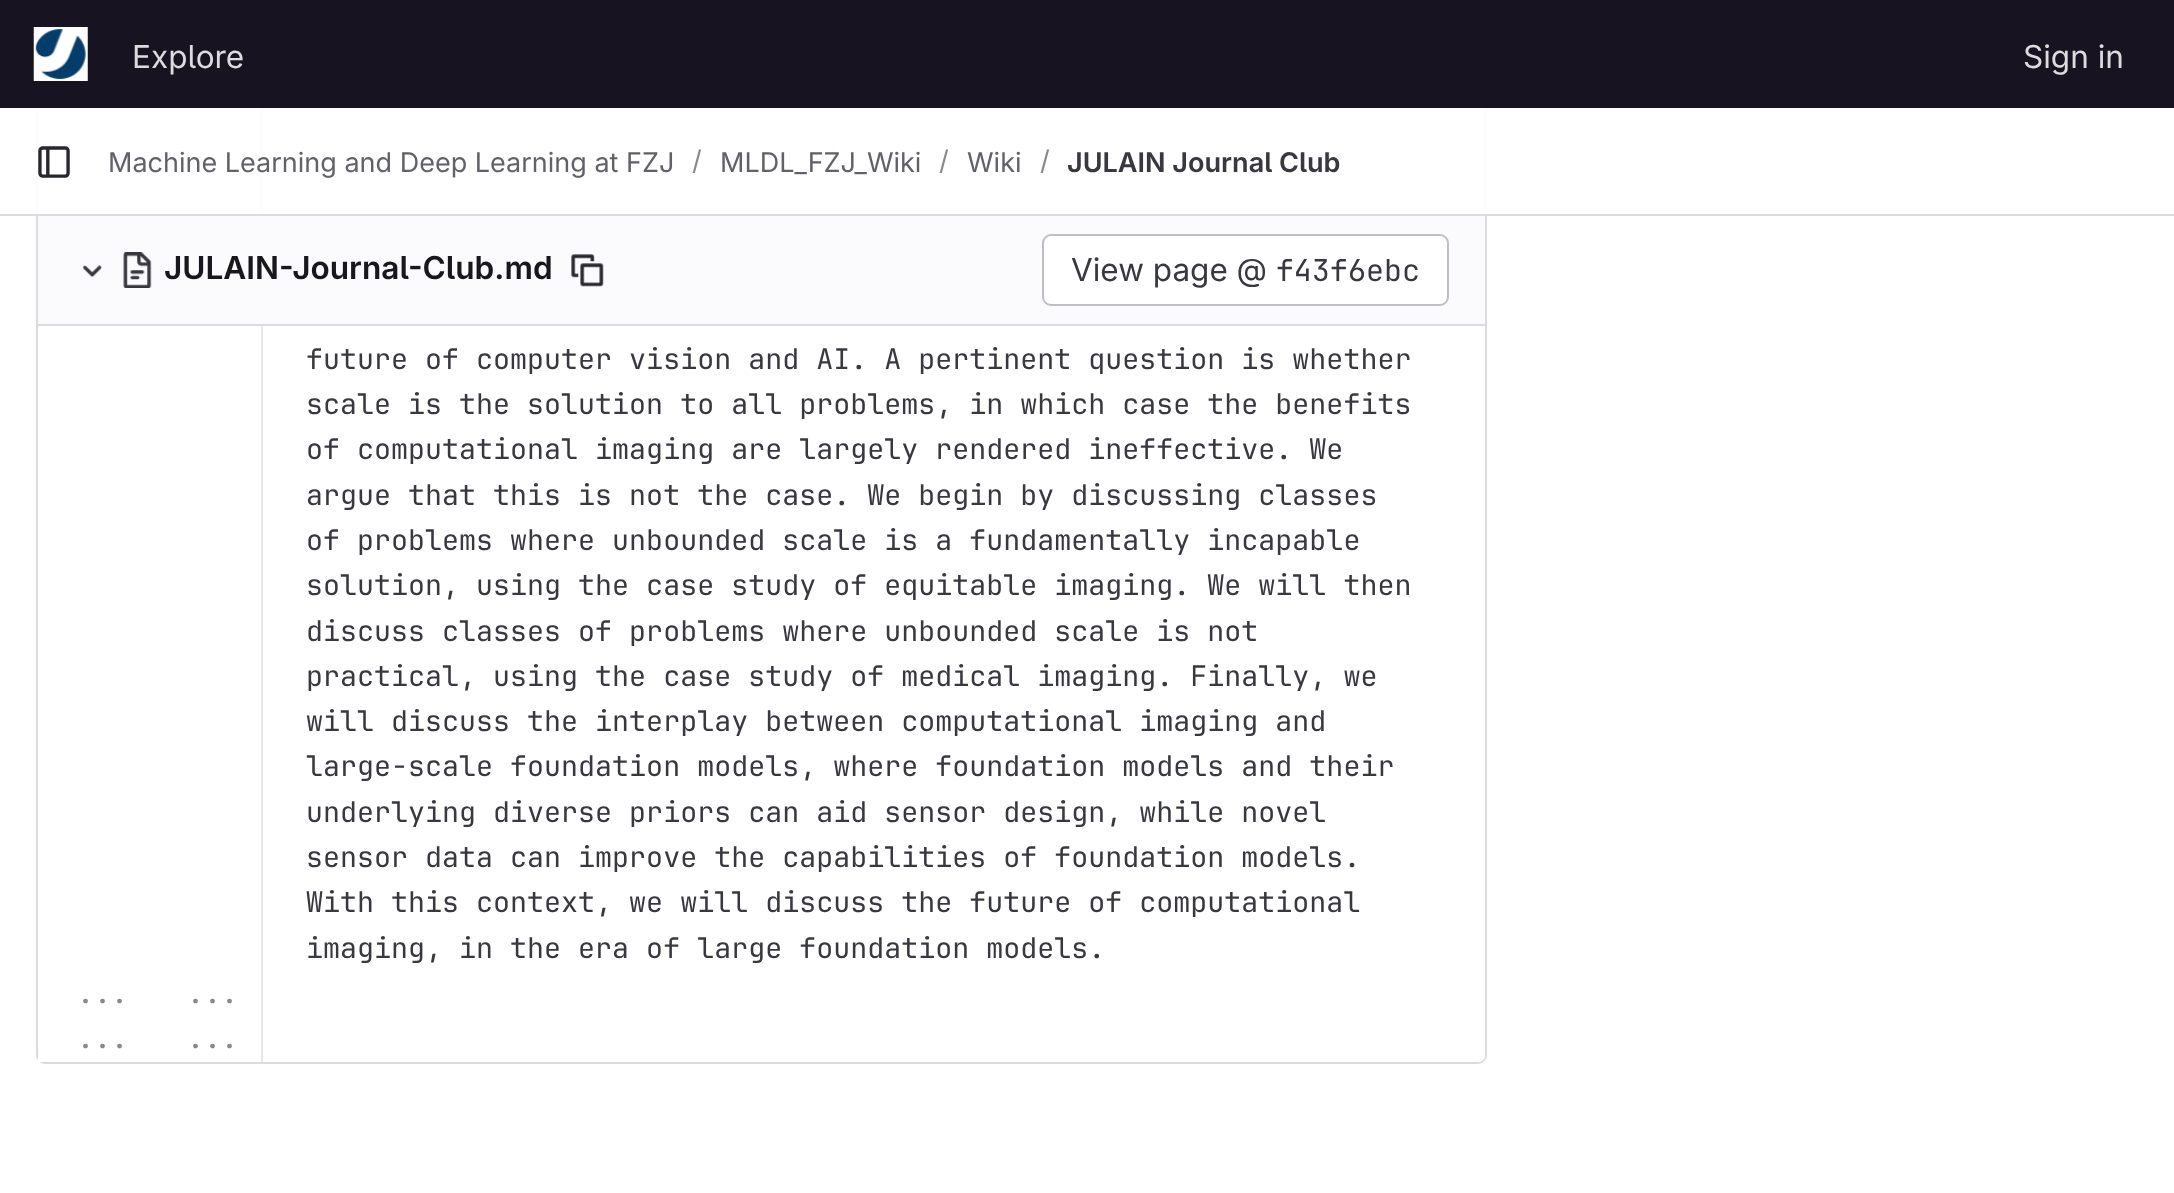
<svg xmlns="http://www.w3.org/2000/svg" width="2174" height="1193">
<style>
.a{font:31.5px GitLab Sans;fill:#dcdcde}
.b{font:27px GitLab Sans;fill:#626168}
.c{font:27px GitLab Sans;fill:#89888d}
.d{font:600 27px GitLab Sans;fill:#3a383f}
.e{font:600 31.5px GitLab Sans;fill:#18171d}
.f{font:31.5px GitLab Sans;fill:#3a383f}
.g{font:30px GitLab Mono;fill:#3a383f}
.h{font:28.35px GitLab Mono;fill:#3a383f}
.i{font:28.35px GitLab Mono;fill:#89888d}
</style>
<rect width="100%" height="100%" fill="#fff"/>
<rect fill="none" stroke="#dcdcde" stroke-width="2" x="37" y="-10" width="1449" height="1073" rx="8"/>
<path fill="#fff" d="M38-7h1447v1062c0 4-3 7-7 7h-1433c-4 0-7-3-7-7z"/>
<path fill="#171321" d="M0 0h2174v108H0z"/>
<image href="1.png" x="33" y="27" width="55" height="54"/>
<path fill="#e6e6e6" d="M261 108h2v954H261z"/>
<path fill="#ffffffeb" d="M36 108h1451v106H36z"/>
<path fill="#dcdcde" d="M0 214h2174v2H0z"/>
<image href="2.png" x="38" y="146" width="32" height="32"/>
<path fill="#fbfafd" d="M38 216h1447v108H38z"/>
<path fill="#dcdcde" d="M38 324h1447v2H38z"/>
<image href="3.png" x="83" y="265" width="19" height="13"/>
<image href="4.png" x="123" y="252" width="29" height="36"/>
<image href="5.png" x="571" y="254" width="33" height="33"/>
<rect fill="#fff" stroke="#bfbfc3" stroke-width="2" x="1043" y="235" width="405" height="70" rx="8"/>
<path fill="#fff" d="M38 1057h5v5H38z"/>
<text class="a" x="132" y="68">Explore</text>
<text class="a" x="2023" y="68">Sign in</text>
<text class="b" x="108" y="172">Machine Learning and Deep Learning at FZJ</text>
<text class="c" x="692" y="170">/</text>
<text class="b" x="720" y="172">MLDL_FZJ_Wiki</text>
<text class="c" x="939" y="170">/</text>
<text class="b" x="967" y="172">Wiki</text>
<text class="c" x="1040" y="170">/</text>
<text class="d" x="1067" y="172">JULAIN Journal Club</text>
<text class="e" x="164" y="279">JULAIN-Journal-Club.md</text>
<text class="f" x="1071" y="281">View page @</text>
<text class="g" x="1276" y="281">f43f6ebc</text>
<text class="h" x="306" y="369">future of computer vision and AI. A pertinent question is whether</text>
<text class="h" x="306" y="414">scale is the solution to all problems, in which case the benefits</text>
<text class="h" x="306" y="459">of computational imaging are largely rendered ineffective. We</text>
<text class="h" x="306" y="505">argue that this is not the case. We begin by discussing classes</text>
<text class="h" x="306" y="550">of problems where unbounded scale is a fundamentally incapable</text>
<text class="h" x="306" y="595">solution, using the case study of equitable imaging. We will then</text>
<text class="h" x="306" y="641">discuss classes of problems where unbounded scale is not</text>
<text class="h" x="306" y="686">practical, using the case study of medical imaging. Finally, we</text>
<text class="h" x="306" y="731">will discuss the interplay between computational imaging and</text>
<text class="h" x="306" y="776">large-scale foundation models, where foundation models and their</text>
<text class="h" x="306" y="822">underlying diverse priors can aid sensor design, while novel</text>
<text class="h" x="306" y="867">sensor data can improve the capabilities of foundation models.</text>
<text class="h" x="306" y="912">With this context, we will discuss the future of computational</text>
<text class="h" x="306" y="958">imaging, in the era of large foundation models.</text>
<text class="i" x="77" y="1003">...</text>
<text class="i" x="187" y="1003">...</text>
<text class="i" x="77" y="1048">...</text>
<text class="i" x="187" y="1048">...</text>
</svg>
